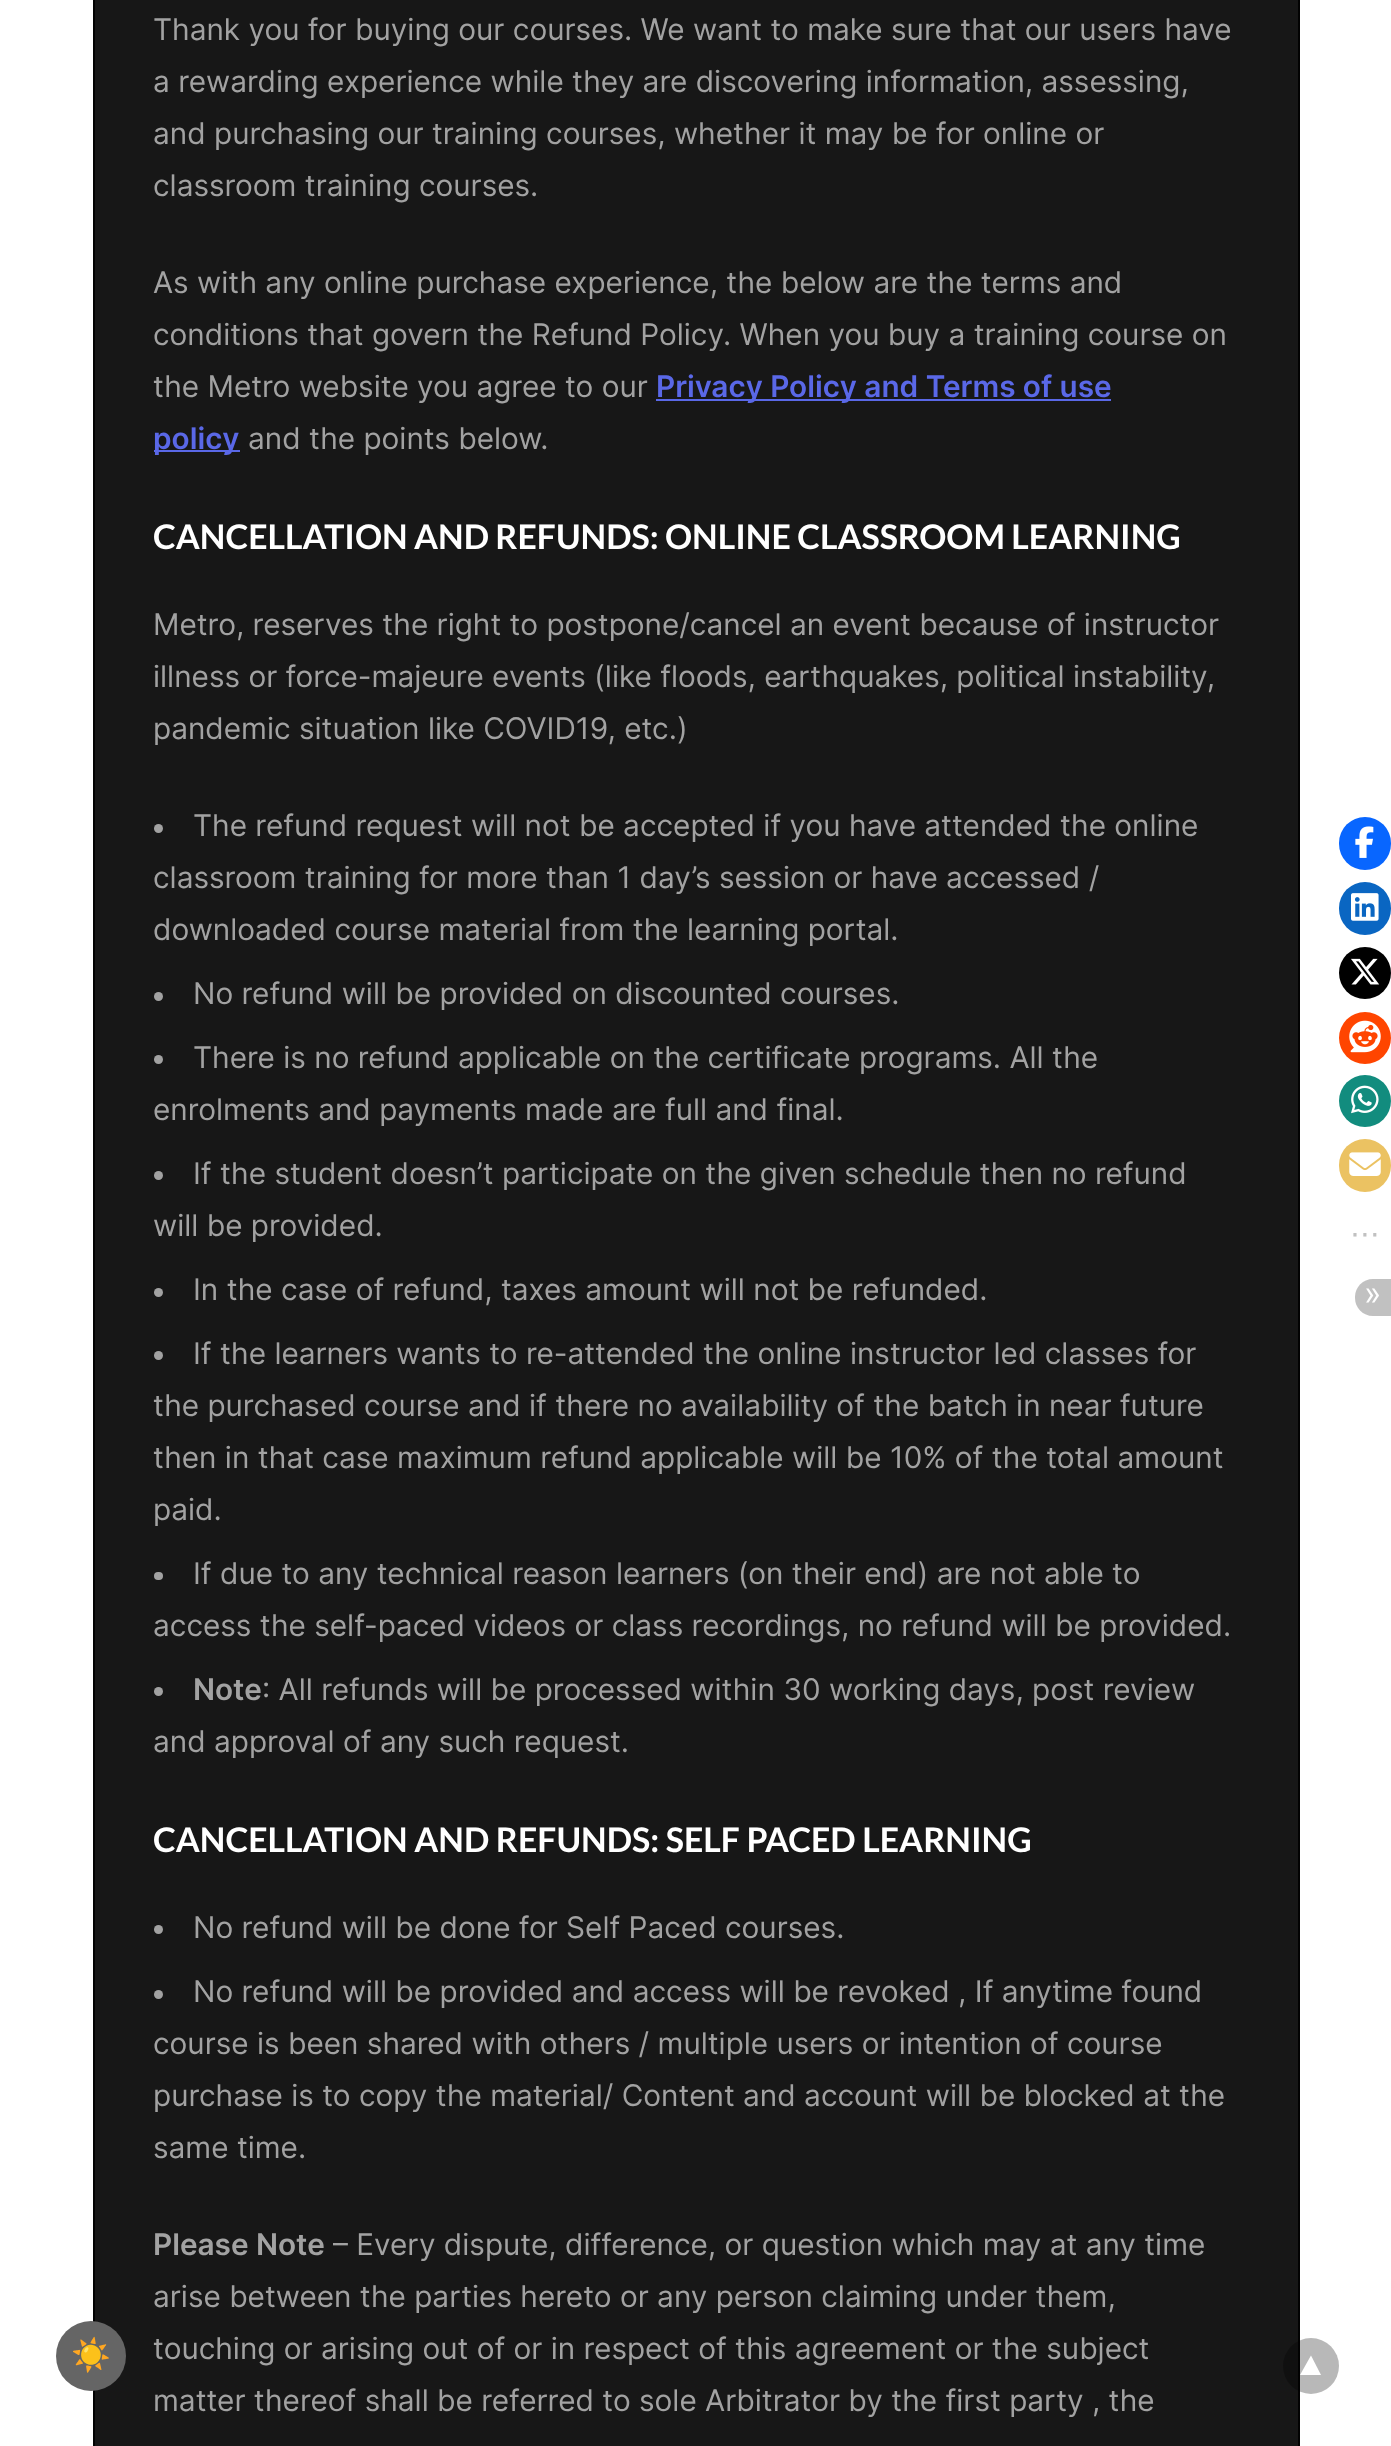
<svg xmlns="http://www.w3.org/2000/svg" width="1391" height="2446">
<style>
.a{font:29.75px Inter;fill:#a2a2a2}
.b{font:600 29.75px Inter;fill:#5a68e7}
.c{font:bold 33.9px Lato;fill:#fff}
.d{font:600 29.75px Inter;fill:#a2a2a2}
.e{font:29.75px DejaVu Sans;fill:#c1c1c1}
.f{font:32px Inter;fill:#fff}
.g{font:bold 32px Noto Color Emoji;fill:#eee}
</style>
<rect width="100%" height="100%" fill="#fff"/>
<path fill="#171717" stroke="#020202" stroke-width="2" d="M94 -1h1205v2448H94z"/>
<path fill="#5a68e7" d="M656 399h455v2H656z"/>
<path fill="#5a68e7" d="M154 450h86v2H154z"/>
<circle fill="#a2a2a2" cx="158.5" cy="828.5" r="4.5"/>
<circle fill="#a2a2a2" cx="158.5" cy="996.5" r="4.5"/>
<circle fill="#a2a2a2" cx="158.5" cy="1059.5" r="4.5"/>
<circle fill="#a2a2a2" cx="158.5" cy="1175.5" r="4.5"/>
<circle fill="#a2a2a2" cx="158.5" cy="1292.5" r="4.5"/>
<circle fill="#a2a2a2" cx="158.5" cy="1355.5" r="4.5"/>
<rect fill="#a2a2a2" x="154" y="1572" width="9" height="8" rx="4"/>
<circle fill="#a2a2a2" cx="158.5" cy="1691.5" r="4.5"/>
<circle fill="#a2a2a2" cx="158.5" cy="1929.5" r="4.5"/>
<circle fill="#a2a2a2" cx="158.5" cy="1994.5" r="4.5"/>
<circle fill="#00000047" cx="1311" cy="2366" r="28"/>
<path fill="#fff" d="M1321 2375h-21l11-19.5z"/>
<rect fill="#0866ff" x="1339" y="817" width="52" height="53" rx="26"/>
<image href="1.png" x="1355" y="826" width="19" height="32"/>
<rect fill="#0a66c2" x="1339" y="882" width="52" height="53" rx="26"/>
<image href="2.png" x="1351" y="893" width="28" height="28"/>
<circle fill="#000" cx="1365" cy="973" r="26"/>
<image href="3.png" x="1351" y="958" width="29" height="27"/>
<circle fill="#ff4500" cx="1365" cy="1038" r="26"/>
<image href="4.png" x="1349" y="1020" width="32" height="33"/>
<circle fill="#128c7e" cx="1365" cy="1101" r="26"/>
<image href="5.png" x="1351" y="1085" width="28" height="29"/>
<rect fill="#ebc262" x="1339" y="1139" width="52" height="53" rx="26"/>
<image href="6.png" x="1349" y="1152" width="32" height="24"/>
<path fill="#c1c1c1" d="M1373 1279h18v37h-18c-10 0-18-8-18-18v-1c0-10 8-18 18-18z"/>
<circle fill="#656565" cx="91" cy="2356" r="35"/>
<text class="a" x="153" y="40">Thank you for buying our courses. We want to make sure that our users have</text>
<text class="a" x="153" y="92">a rewarding experience while they are discovering information, assessing,</text>
<text class="a" x="153" y="144">and purchasing our training courses, whether it may be for online or</text>
<text class="a" x="153" y="196">classroom training courses.</text>
<text class="a" x="153" y="293">As with any online purchase experience, the below are the terms and</text>
<text class="a" x="153" y="345">conditions that govern the Refund Policy. When you buy a training course on</text>
<text class="a" x="153" y="397">the Metro website you agree to our</text>
<text class="b" x="656" y="397">Privacy Policy and Terms of use</text>
<text class="b" x="153" y="449">policy</text>
<text class="a" x="248" y="449">and the points below.</text>
<text class="c" x="153" y="549" word-spacing="-0.25">CANCELLATION AND REFUNDS: ONLINE CLASSROOM LEARNING</text>
<text class="a" x="153" y="635">Metro, reserves the right to postpone/cancel an event because of instructor</text>
<text class="a" x="153" y="687">illness or force-majeure events (like floods, earthquakes, political instability,</text>
<text class="a" x="153" y="739">pandemic situation like COVID19, etc.)</text>
<text class="a" x="193" y="836">The refund request will not be accepted if you have attended the online</text>
<text class="a" x="153" y="888">classroom training for more than 1 day’s session or have accessed /</text>
<text class="a" x="153" y="940">downloaded course material from the learning portal.</text>
<text class="a" x="193" y="1004">No refund will be provided on discounted courses.</text>
<text class="a" x="193" y="1068">There is no refund applicable on the certificate programs. All the</text>
<text class="a" x="153" y="1120">enrolments and payments made are full and final.</text>
<text class="a" x="193" y="1184">If the student doesn’t participate on the given schedule then no refund</text>
<text class="a" x="153" y="1236">will be provided.</text>
<text class="a" x="193" y="1300">In the case of refund, taxes amount will not be refunded.</text>
<text class="a" x="193" y="1364">If the learners wants to re-attended the online instructor led classes for</text>
<text class="a" x="153" y="1416">the purchased course and if there no availability of the batch in near future</text>
<text class="a" x="153" y="1468">then in that case maximum refund applicable will be 10% of the total amount</text>
<text class="a" x="153" y="1520">paid.</text>
<text class="a" x="193" y="1584">If due to any technical reason learners (on their end) are not able to</text>
<text class="a" x="153" y="1636">access the self-paced videos or class recordings, no refund will be provided.</text>
<text class="d" x="193" y="1700">Note</text>
<text class="a" x="262" y="1700">: All refunds will be processed within 30 working days, post review</text>
<text class="a" x="153" y="1752">and approval of any such request.</text>
<text class="c" x="153" y="1852">CANCELLATION AND REFUNDS: SELF PACED LEARNING</text>
<text class="a" x="193" y="1938">No refund will be done for Self Paced courses.</text>
<text class="a" x="193" y="2002">No refund will be provided and access will be revoked , If anytime found</text>
<text class="a" x="153" y="2054">course is been shared with others / multiple users or intention of course</text>
<text class="a" x="153" y="2106">purchase is to copy the material/ Content and account will be blocked at the</text>
<text class="a" x="153" y="2158">same time.</text>
<text class="d" x="153" y="2255">Please Note</text>
<text class="a" x="333" y="2255">– Every dispute, difference, or question which may at any time</text>
<text class="a" x="153" y="2307">arise between the parties hereto or any person claiming under them,</text>
<text class="a" x="153" y="2359">touching or arising out of or in respect of this agreement or the subject</text>
<text class="a" x="153" y="2411">matter thereof shall be referred to sole Arbitrator by the first party , the</text>
<text class="e" x="1350" y="1244">⋯</text>
<text class="f" x="1364" y="1305">»</text>
<text class="g" x="71" y="2366">☀️</text>
</svg>
